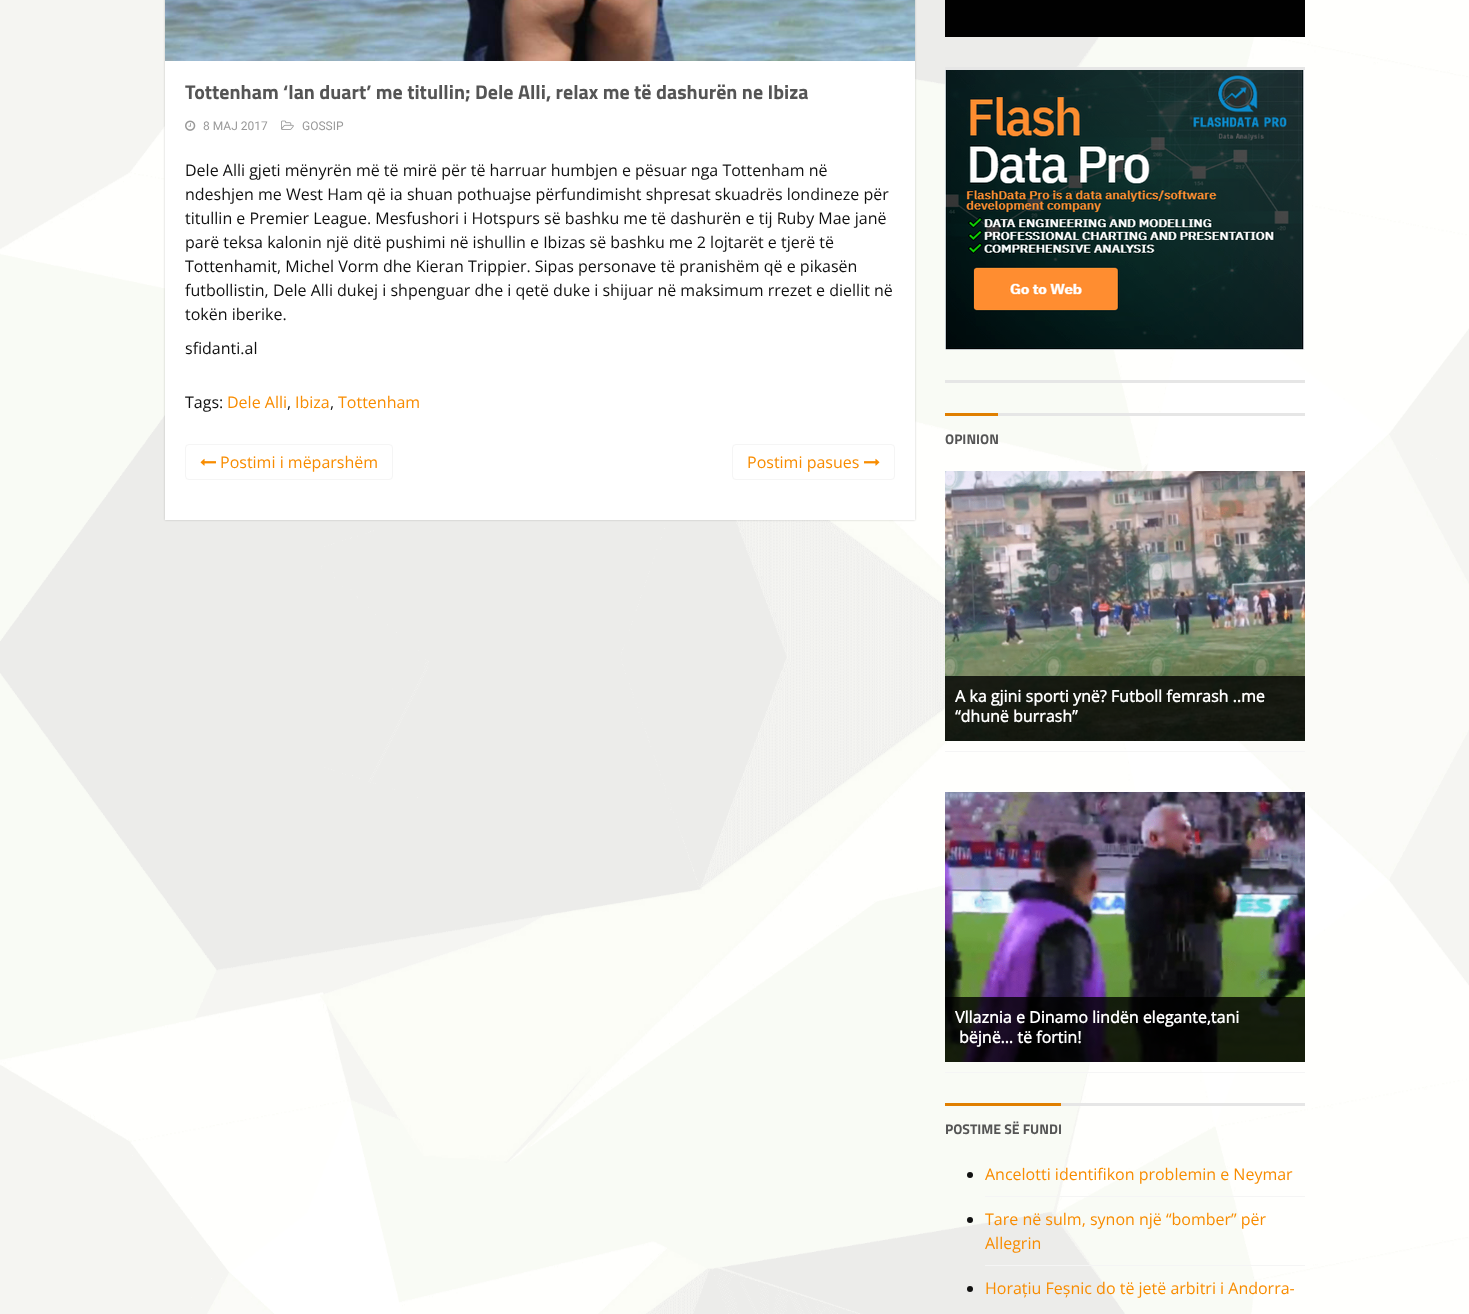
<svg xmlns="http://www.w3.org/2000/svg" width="1469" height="1314">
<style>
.a{font:bold 20px Titillium Web;fill:#555}
.b{font:12px Roboto;fill:#999}
.c{font:16px Open Sans;fill:#111}
.d{font:16px Open Sans;fill:#f88c00}
.e{font:bold 14px Titillium Web;fill:#555}
.f{font:bold 16px Open Sans;fill:#fff}
</style>
<rect width="100%" height="100%" fill="#fff"/>
<image href="1.png" x="0" y="0" width="1469" height="1314"/>
<path fill="#00000033" filter="blur(1px)" d="M165 -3h750v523H165z"/>
<path fill="#fff" d="M165 61h750v459H165z"/>
<image href="2.png" x="165" y="0" width="750" height="61"/>
<image href="3.png" x="185" y="120" width="11" height="11"/>
<image href="4.png" x="281" y="120" width="13" height="10"/>
<rect fill="none" stroke="#f5f5f5" x="185.5" y="444.5" width="207" height="35" rx="3.5"/>
<image href="5.png" x="200" y="458" width="16" height="8"/>
<rect fill="none" stroke="#f5f5f5" x="732.5" y="444.5" width="162" height="35" rx="3.5"/>
<image href="6.png" x="864" y="458" width="16" height="8"/>
<path fill="#010101" d="M945 0h360v37H945z"/>
<path fill="#e6e6e6" d="M945 67h360v3H945z"/>
<image href="7.png" x="945" y="70" width="360" height="280"/>
<path fill="#e6e6e6" d="M945 380h360v3H945z"/>
<path fill="#e6e6e6" d="M998 413h307v3H998z"/>
<path fill="#e07f00" d="M945 413h53v3H945z"/>
<path fill="#f5f5f5" d="M945 751h360v1H945z"/>
<image href="8.png" x="945" y="471" width="360" height="270"/>
<path fill="#000000cc" d="M945 676h360v65H945z"/>
<path fill="#f5f5f5" d="M945 1072h360v1H945z"/>
<image href="9.png" x="945" y="792" width="360" height="270"/>
<path fill="#000000cc" d="M945 997h360v65H945z"/>
<path fill="#e6e6e6" d="M1061 1103h244v3H1061z"/>
<path fill="#e07f00" d="M945 1103h116v3H945z"/>
<path fill="#f5f5f5" d="M985 1196h320v1H985z"/>
<circle fill="#111" cx="970" cy="1175" r="3"/>
<path fill="#f5f5f5" d="M985 1265h320v1H985z"/>
<circle fill="#111" cx="970" cy="1220" r="3"/>
<circle fill="#111" cx="970" cy="1289" r="3"/>
<text class="a" x="185" y="99">Tottenham ‘lan duart’ me titullin; Dele Alli, relax me të dashurën ne Ibiza</text>
<text class="b" x="203" y="130">8 MAJ 2017</text>
<text class="b" x="302" y="130">GOSSIP</text>
<text class="c" x="185" y="176">Dele Alli gjeti mënyrën më të mirë për të harruar humbjen e pësuar nga Tottenham në</text>
<text class="c" x="185" y="200">ndeshjen me West Ham që ia shuan pothuajse përfundimisht shpresat skuadrës londineze për</text>
<text class="c" x="185" y="224">titullin e Premier League. Mesfushori i Hotspurs së bashku me të dashurën e tij Ruby Mae janë</text>
<text class="c" x="185" y="248">parë teksa kalonin një ditë pushimi në ishullin e Ibizas së bashku me 2 lojtarët e tjerë të</text>
<text class="c" x="185" y="272">Tottenhamit, Michel Vorm dhe Kieran Trippier. Sipas personave të pranishëm që e pikasën</text>
<text class="c" x="185" y="296">futbollistin, Dele Alli dukej i shpenguar dhe i qetë duke i shijuar në maksimum rrezet e diellit në</text>
<text class="c" x="185" y="320">tokën iberike.</text>
<text class="c" x="185" y="354">sfidanti.al</text>
<text class="c" x="185" y="408">Tags:</text>
<text class="d" x="227" y="408">Dele Alli</text>
<text class="c" x="287" y="408">,</text>
<text class="d" x="295" y="408">Ibiza</text>
<text class="c" x="330" y="408">,</text>
<text class="d" x="338" y="408">Tottenham</text>
<text class="d" x="220" y="468">Postimi i mëparshëm</text>
<text class="d" x="747" y="468">Postimi pasues</text>
<text class="e" x="945" y="444">OPINION</text>
<text class="f" x="955" y="702">A ka gjini sporti ynë? Futboll femrash ..me</text>
<text class="f" x="955" y="722">“dhunë burrash”</text>
<text class="f" x="955" y="1023">Vllaznia e Dinamo lindën elegante,tani</text>
<text class="f" x="959" y="1043">bëjnë… të fortin!</text>
<text class="e" x="945" y="1134">POSTIME SË FUNDI</text>
<text class="d" x="985" y="1180">Ancelotti identifikon problemin e Neymar</text>
<text class="d" x="985" y="1225">Tare në sulm, synon një “bomber” për</text>
<text class="d" x="985" y="1249">Allegrin</text>
<text class="d" x="985" y="1294">Horațiu Feșnic do të jetë arbitri i Andorra-</text>
</svg>
